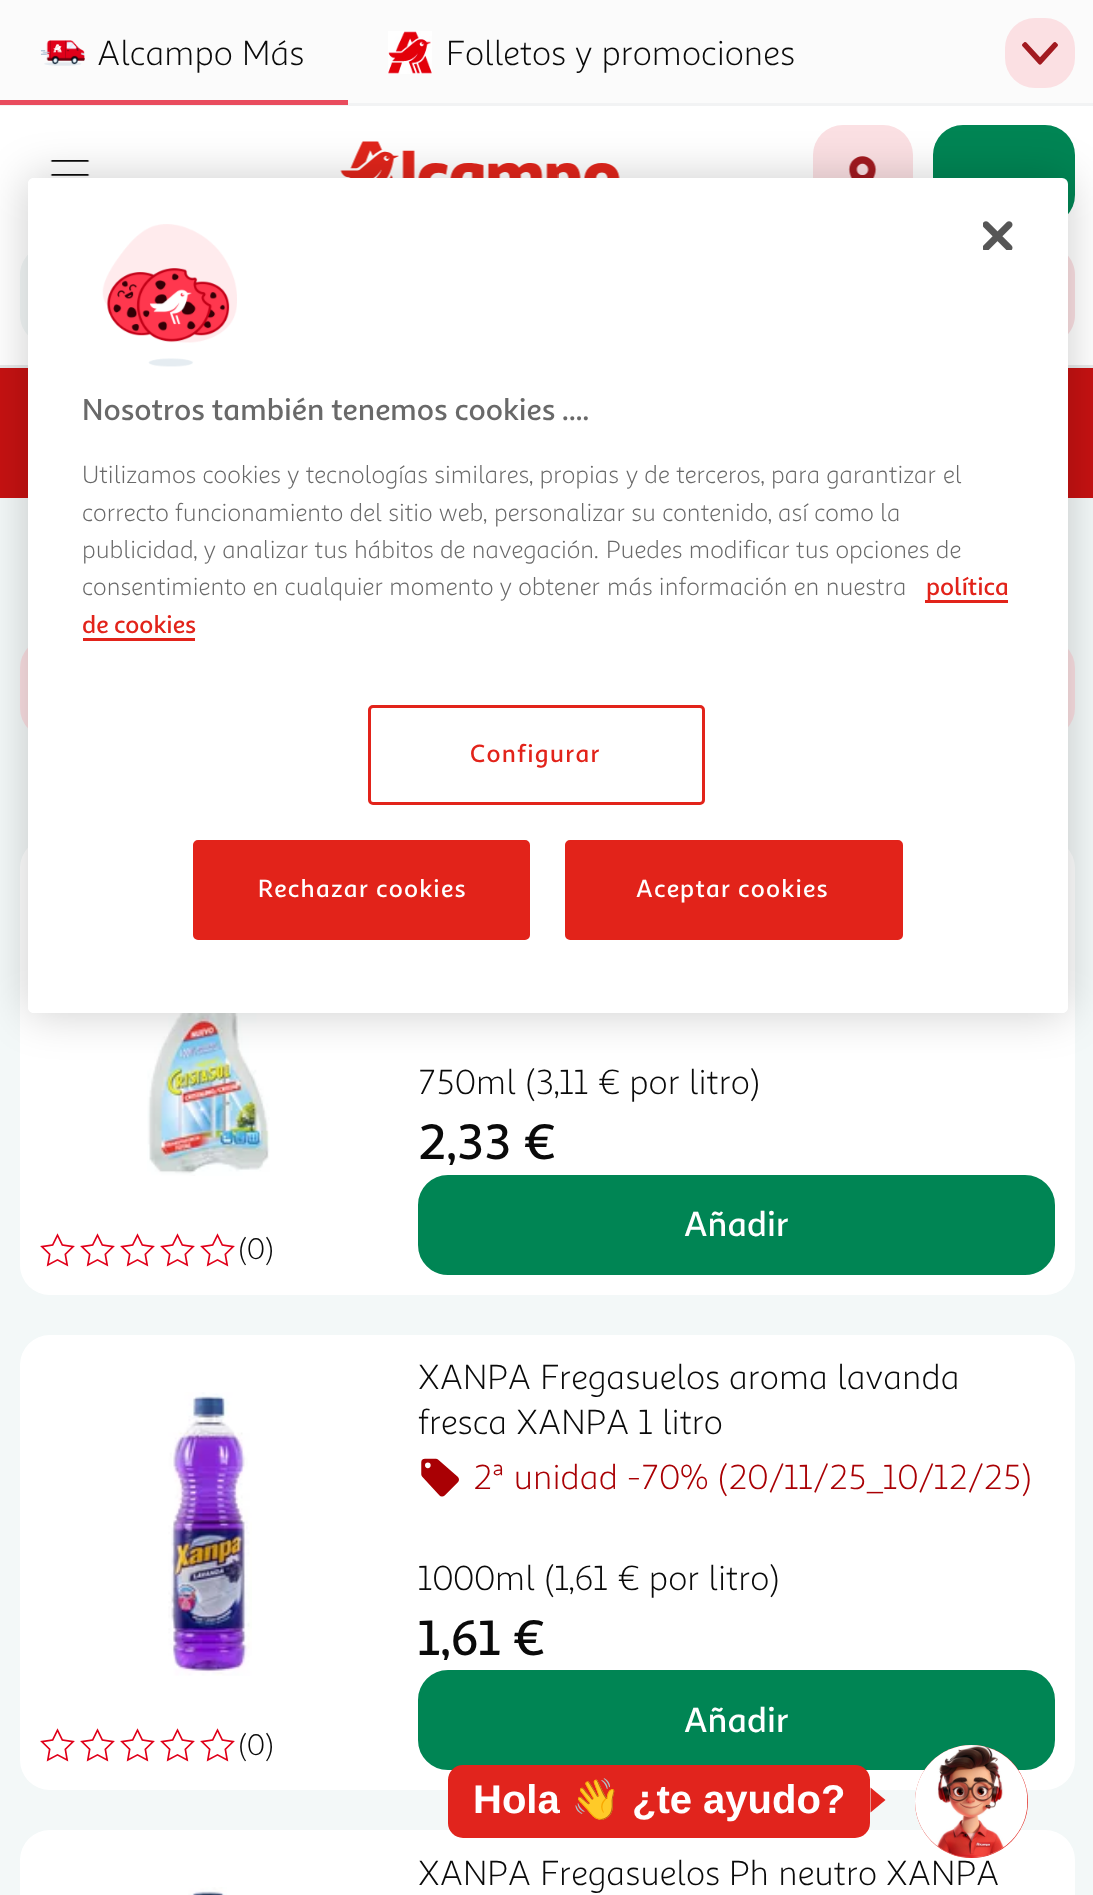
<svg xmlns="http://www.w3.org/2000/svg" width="1093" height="1895">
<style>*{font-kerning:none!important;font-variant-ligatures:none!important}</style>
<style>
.a{font:35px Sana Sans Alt;fill:#0a0a0a}
.b{font:500 50px Sana Sans Alt;fill:#0a0a0a}
.c{font:500 35px Sana Sans Alt;fill:#fff}
.d{font:30px Sana Sans Alt;fill:#0a0a0a}
.e{font:35px Sana Sans Alt;fill:#a90004}
.f{font:500 30.6px Sana Sans Alt;fill:#696969}
.g{font:24.9px Sana Sans Alt;fill:#696969}
.h{font:500 24.9px Sana Sans Alt;fill:#e2231a}
.i{font:500 24.9px Sana Sans Alt;letter-spacing:1.25px;fill:#e2231a}
.j{font:500 24.9px Sana Sans Alt;letter-spacing:1.25px;fill:#fff}
.k{font:bold 40px Liberation Sans;fill:#fff}
.l{font:bold 40px Noto Color Emoji;fill:#fff}
</style>
<defs>
<clipPath id="clip1"><path d="M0 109h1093v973h-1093zm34 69h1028c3.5 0 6 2.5 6 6v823c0 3.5-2.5 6-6 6h-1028c-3.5 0-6-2.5-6-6v-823c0-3.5 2.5-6 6-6z" clip-rule="evenodd"/></clipPath>
<clipPath id="clip2"><path d="M418 1115h637v50H418z"/></clipPath>
<clipPath id="clip3"><path d="M418 1610h637v50H418z"/></clipPath>
</defs>
<rect width="100%" height="100%" fill="#f3f8f8"/>
<path fill="#fbfbfb" d="M0 0h1093v103H0z"/>
<image href="1.png" x="40" y="40" width="45" height="26"/>
<path fill="#f2f3f4" d="M0 103h1093v3H0z"/>
<path fill="#e94c5e" d="M0 100h348v5H0z"/>
<image href="2.png" x="388" y="31" width="44" height="43"/>
<rect fill="#fbe0e3" x="1005" y="18" width="70" height="70" rx="30"/>
<image href="3.png" x="1022" y="42" width="36" height="23"/>
<path fill="#e8eaeb" d="M0 365h1093v3H0z"/>
<path fill="#fff" d="M0 106h1093v259H0z"/>
<image href="4.png" x="340" y="141" width="280" height="37"/>
<rect fill="#fbe0e3" x="813" y="125" width="100" height="100" rx="30"/>
<image href="5.png" x="848" y="156" width="29" height="22"/>
<rect fill="#008554" x="933" y="125" width="142" height="100" rx="30"/>
<path fill="#f3f8f8" d="M50 245h925v100h-925c-16.5 0-30-13.5-30-30v-40c0-16.5 13.5-30 30-30z"/>
<path fill="#fbe0e3" d="M975 245h70c16.5 0 30 13.5 30 30v40c0 16.5-13.5 30-30 30h-70z"/>
<image href="6.png" x="50" y="160" width="40" height="16"/>
<path fill="#c61212" d="M0 368h1093v130H0z"/>
<rect fill="#fbe0e3" x="20" y="638" width="518" height="100" rx="30"/>
<rect fill="#fbe0e3" x="558" y="638" width="517" height="100" rx="30"/>
<rect fill="#fff" x="20" y="838" width="1055" height="457" rx="30"/>
<rect fill="#008554" stroke="#008554" stroke-width="3" x="419.5" y="1176.5" width="634" height="97" rx="28.5"/>
<image href="7.png" x="147" y="1013" width="123" height="163"/>
<image href="8.png" x="40" y="1233" width="35" height="34"/>
<image href="8.png" x="80" y="1233" width="35" height="34"/>
<image href="8.png" x="120" y="1233" width="35" height="34"/>
<image href="8.png" x="160" y="1233" width="35" height="34"/>
<image href="8.png" x="200" y="1233" width="35" height="34"/>
<rect fill="#fff" x="20" y="1335" width="1055" height="455" rx="30"/>
<image href="9.png" x="421" y="1458" width="38" height="39"/>
<rect fill="#008554" stroke="#008554" stroke-width="3" x="419.5" y="1671.5" width="634" height="97" rx="28.5"/>
<image href="10.png" x="168" y="1392" width="84" height="284"/>
<image href="8.png" x="40" y="1728" width="35" height="34"/>
<image href="8.png" x="80" y="1728" width="35" height="34"/>
<image href="8.png" x="120" y="1728" width="35" height="34"/>
<image href="8.png" x="160" y="1728" width="35" height="34"/>
<image href="8.png" x="200" y="1728" width="35" height="34"/>
<rect fill="#fff" x="20" y="1830" width="1055" height="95" rx="30"/>
<image href="11.png" x="188" y="1887" width="39" height="8"/>
<g clip-path="url(#clip1)">
<rect fill="#00000033" filter="blur(22.5px)" x="28" y="178" width="1040" height="835" rx="6"/>
</g>
<rect fill="#fff" x="28" y="178" width="1040" height="835" rx="6"/>
<image href="12.png" x="983" y="221" width="30" height="29"/>
<image href="13.png" x="102" y="224" width="135" height="143"/>
<path fill="#e2231a" d="M925 600h83v3H925z"/>
<path fill="#e2231a" d="M83 638h112v3H83z"/>
<rect fill="none" stroke="#e2231a" stroke-width="3" x="369.5" y="706.5" width="334" height="97" rx="3.5"/>
<rect fill="#e2231a" stroke="#e2231a" stroke-width="3" x="194.5" y="841.5" width="334" height="97" rx="3.5"/>
<rect fill="#e2231a" stroke="#e2231a" stroke-width="3" x="566.5" y="841.5" width="335" height="97" rx="3.5"/>
<rect fill="#e1241d" x="448" y="1765" width="422" height="73" rx="15"/>
<path fill="#e1241d" d="M870.5 1812.5v-25l15 12.5z"/>
<circle fill="#e1241d" cx="971.5" cy="1801.5" r="56.5"/>
<image href="14.png" x="915" y="1745" width="113" height="113"/>
<text class="a" x="97" y="65">Alcampo Más</text>
<text class="a" x="446" y="65">Folletos y promociones</text>
<text class="a" x="418" y="1094">750ml</text>
<text class="a" x="525" y="1094">(3,11 € por litro)</text>
<g clip-path="url(#clip2)">
<text class="b" x="418" y="1159">2,33 €</text>
</g>
<text class="c" x="684" y="1236">Añadir</text>
<text class="d" x="238" y="1259">(0)</text>
<text class="a" x="418" y="1389">XANPA Fregasuelos</text>
<text class="a" x="729" y="1389">aroma lavanda</text>
<text class="a" x="418" y="1434">fresca XANPA 1 litro</text>
<text class="e" x="473" y="1489">2ª unidad -70% (20/11/25_10/12/25)</text>
<text class="a" x="418" y="1590">1000ml</text>
<text class="a" x="544" y="1590">(1,61 € por litro)</text>
<g clip-path="url(#clip3)">
<text class="b" x="418" y="1655">1,61 €</text>
</g>
<text class="c" x="684" y="1732">Añadir</text>
<text class="d" x="238" y="1755">(0)</text>
<text class="a" x="418" y="1885">XANPA Fregasuelos</text>
<text class="a" x="729" y="1885">Ph neutro XANPA</text>
<text class="f" x="82" y="420">Nosotros también tenemos cookies ....</text>
<text class="g" x="82" y="483" word-spacing="-0.25">Utilizamos cookies y tecnologías similares, propias</text>
<text class="g" x="626" y="483" word-spacing="-0.25">y de terceros, para garantizar</text>
<text class="g" x="943" y="483" word-spacing="-0.25">el</text>
<text class="g" x="82" y="521" word-spacing="-0.25">correcto funcionamiento del sitio web,</text>
<text class="g" x="494" y="521" word-spacing="-0.25">personalizar su contenido, así como la</text>
<text class="g" x="82" y="558" word-spacing="-0.25">publicidad, y analizar tus hábitos de navegación.</text>
<text class="g" x="606" y="558" word-spacing="-0.25">Puedes modificar tus opciones de</text>
<text class="g" x="82" y="595" word-spacing="-0.25">consentimiento en cualquier momento y obtener</text>
<text class="g" x="607" y="595" word-spacing="-0.25">más información en nuestra</text>
<text class="h" x="926" y="595">política</text>
<text class="h" x="82" y="633">de cookies</text>
<text class="i" x="470" y="762">Configurar</text>
<text class="j" x="258" y="897">Rechazar cookies</text>
<text class="j" x="636" y="897">Aceptar cookies</text>
<text class="k" x="473" y="1813">Hola</text>
<text class="l" x="571" y="1813">👋</text>
<text class="k" x="632" y="1813">¿te ayudo?</text>
</svg>
